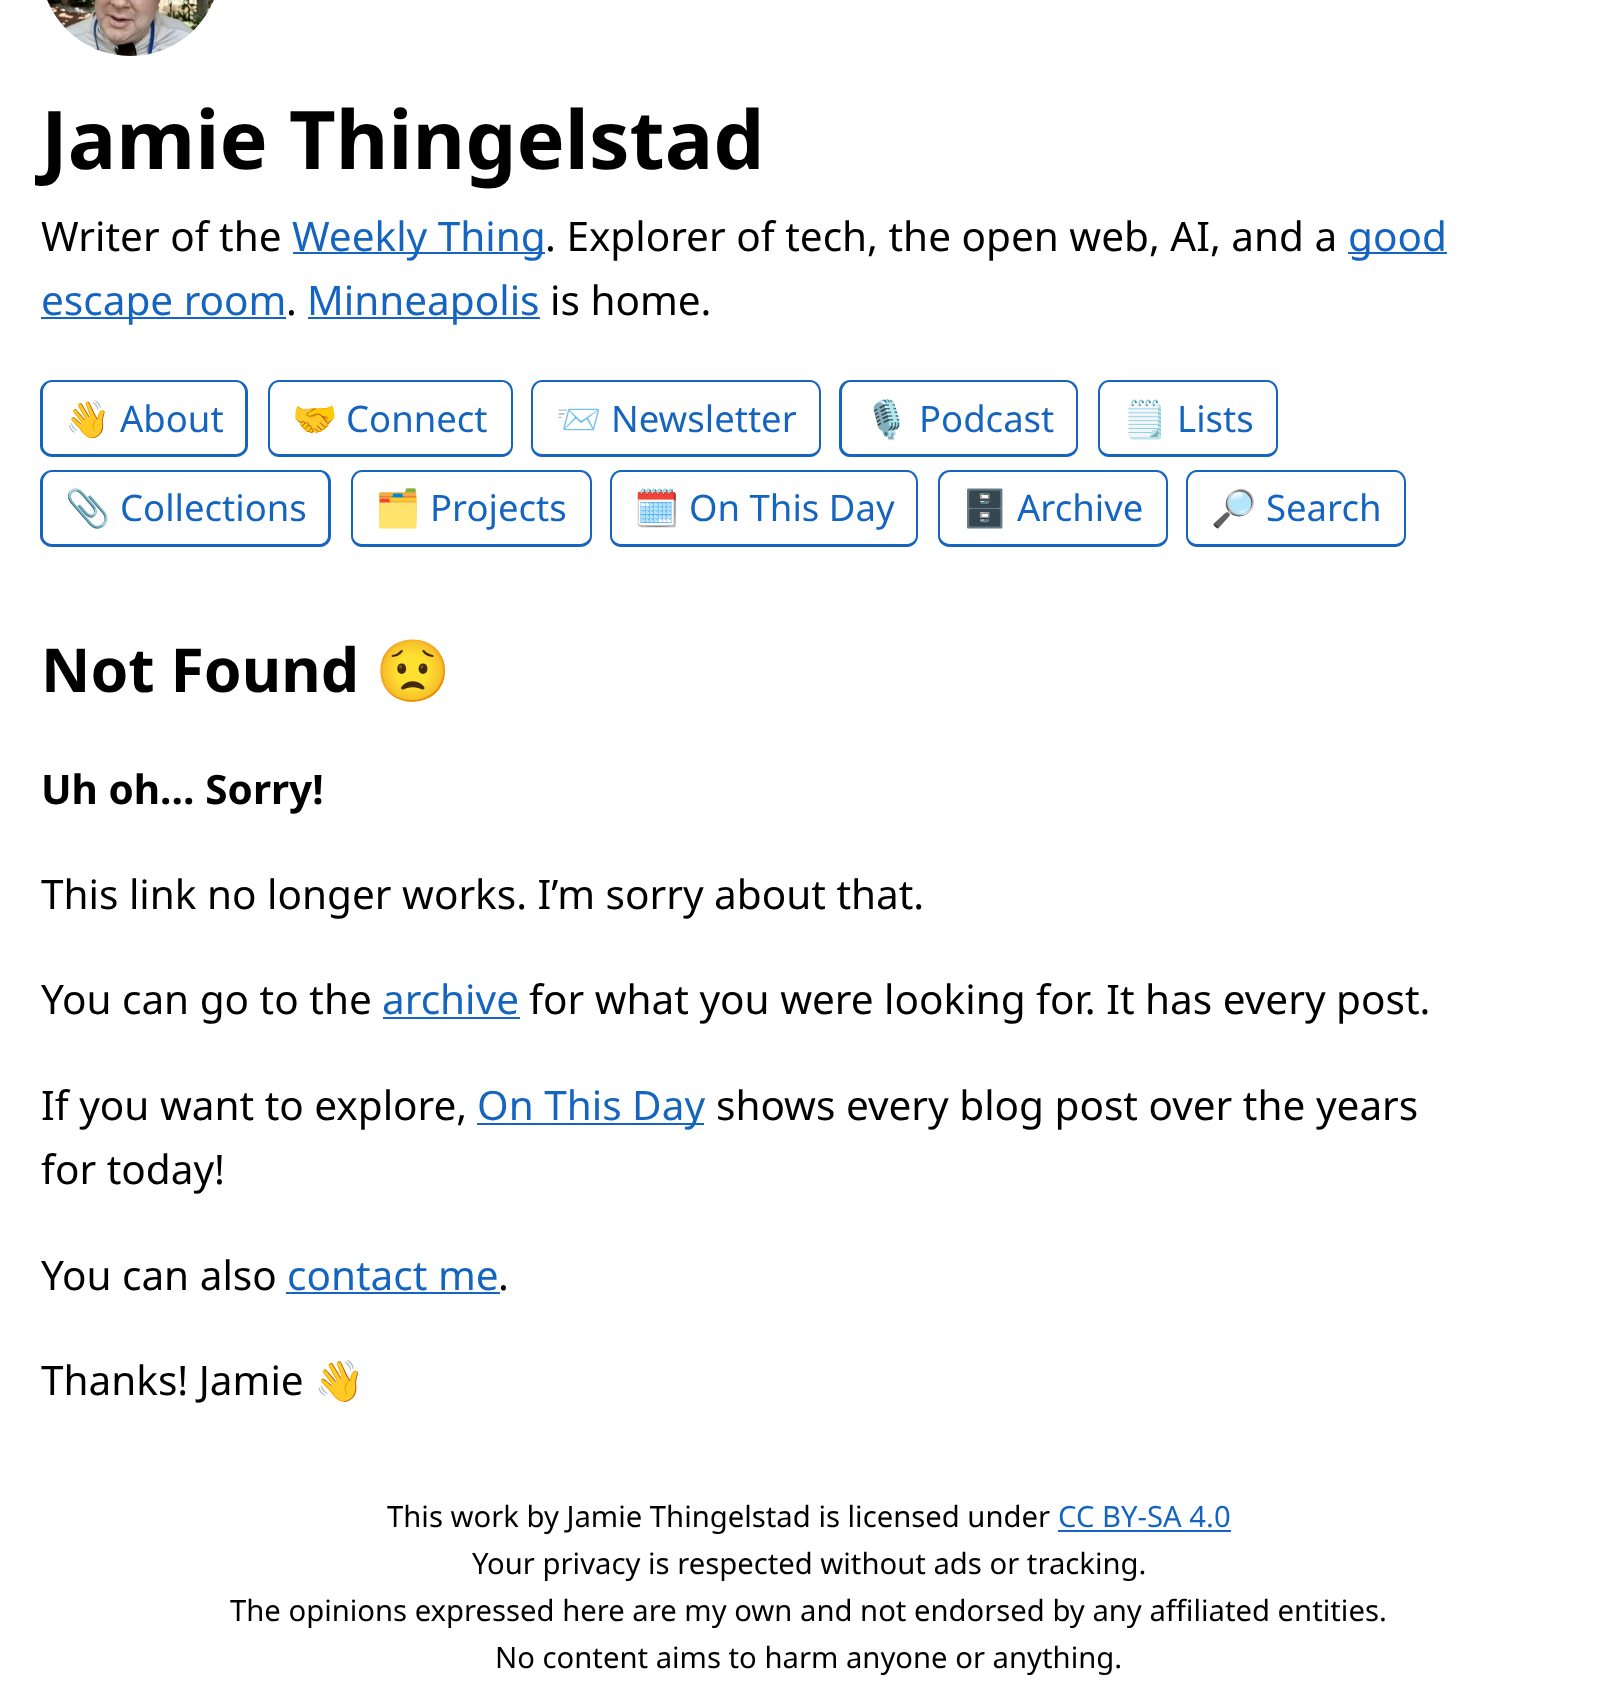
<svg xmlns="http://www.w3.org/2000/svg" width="1616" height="1686">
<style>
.a{font:bold 81px Noto Sans;fill:#000}
.b{font:40.5px Noto Sans;fill:#000}
.c{font:40.5px Noto Sans;fill:#1565c0}
.d{font:36.5px Noto Color Emoji;fill:#1565c0}
.e{font:36.5px Noto Sans;fill:#1565c0}
.f{font:bold 60.75px Noto Sans;fill:#000}
.g{font:bold 60.75px Noto Color Emoji;fill:#000}
.h{font:bold 40.5px Noto Sans;fill:#000}
.i{font:40.5px Noto Color Emoji;fill:#000}
.j{font:29.25px Noto Sans;fill:#000}
.k{font:29.25px Noto Sans;fill:#1565c0}
</style>
<rect width="100%" height="100%" fill="#fff"/>
<image href="1.png" x="47" y="0" width="167" height="56"/>
<path fill="#1565c0" d="M293 252h252v2H293z"/>
<path fill="#1565c0" d="M1348 252h99v2H1348z"/>
<path fill="#1565c0" d="M41 317h245v2H41z"/>
<path fill="#1565c0" d="M308 317h232v2H308z"/>
<path fill="#1565c0" fill-rule="evenodd" d="M52 380h67v77h-67c-6 0-12-5-12-11v-54c0-7 6-12 12-12zm0 2h67v72h-67c-5 0-9-4-9-8v-54c0-5 4-10 9-10z"/>
<path fill="#1565c0" fill-rule="evenodd" d="M119 380h117c6 0 12 5 12 12v54c0 6-6 11-12 11h-117zm0 2h117c5 0 9 5 9 10v54c0 4-4 8-9 8h-117z"/>
<path fill="#1565c0" fill-rule="evenodd" d="M279 380h67v77h-67c-6 0-11-5-11-11v-54c0-7 5-12 11-12zm0 2h67v72h-67c-5 0-9-4-9-8v-54c0-5 4-10 9-10z"/>
<path fill="#1565c0" fill-rule="evenodd" d="M346 380h156c6 0 11 5 11 12v54c0 6-5 11-11 11h-156zm0 2h156c5 0 9 5 9 10v54c0 4-4 8-9 8h-156z"/>
<path fill="#1565c0" fill-rule="evenodd" d="M542 380h68v77h-68c-6 0-11-5-11-11v-54c0-7 5-12 11-12zm0 2h68v72h-68c-5 0-9-4-9-8v-54c0-5 4-10 9-10z"/>
<path fill="#1565c0" fill-rule="evenodd" d="M610 380h200c6 0 11 5 11 12v54c0 6-5 11-11 11h-200zm0 2h200c5 0 9 5 9 10v54c0 4-4 8-9 8h-200z"/>
<path fill="#1565c0" fill-rule="evenodd" d="M850 380h68v77h-68c-6 0-11-5-11-11v-54c0-7 5-12 11-12zm0 2h68v72h-68c-4 0-8-4-8-8v-54c0-5 4-10 8-10z"/>
<path fill="#1565c0" fill-rule="evenodd" d="M918 380h148c7 0 12 5 12 12v54c0 6-5 11-12 11h-148zm0 2h148c5 0 10 5 10 10v54c0 4-5 8-10 8h-148z"/>
<path fill="#1565c0" fill-rule="evenodd" d="M1109 380h68v77h-68c-6 0-11-5-11-11v-54c0-7 5-12 11-12zm0 2h68v72h-68c-5 0-9-4-9-8v-54c0-5 4-10 9-10z"/>
<path fill="#1565c0" fill-rule="evenodd" d="M1177 380h90c6 0 11 5 11 12v54c0 6-5 11-11 11h-90zm0 2h90c5 0 9 5 9 10v54c0 4-4 8-9 8h-90z"/>
<path fill="#1565c0" fill-rule="evenodd" d="M52 470h67v77h-67c-6 0-12-5-12-11v-54c0-7 6-12 12-12zm0 2h67v72h-67c-5 0-9-4-9-8v-54c0-5 4-10 9-10z"/>
<path fill="#1565c0" fill-rule="evenodd" d="M119 470h201c6 0 11 5 11 12v54c0 6-5 11-11 11h-201zm0 2h201c4 0 8 5 8 10v54c0 4-4 8-8 8h-201z"/>
<path fill="#1565c0" fill-rule="evenodd" d="M362 470h68v77h-68c-6 0-11-5-11-11v-54c0-7 5-12 11-12zm0 2h68v72h-68c-5 0-9-4-9-8v-54c0-5 4-10 9-10z"/>
<path fill="#1565c0" fill-rule="evenodd" d="M430 470h150c7 0 12 5 12 12v54c0 6-5 11-12 11h-150zm0 2h150c5 0 10 5 10 10v54c0 4-5 8-10 8h-150z"/>
<path fill="#1565c0" fill-rule="evenodd" d="M621 470h67v77h-67c-6 0-11-5-11-11v-54c0-7 5-12 11-12zm0 2h67v72h-67c-5 0-9-4-9-8v-54c0-5 4-10 9-10z"/>
<path fill="#1565c0" fill-rule="evenodd" d="M688 470h219c6 0 11 5 11 12v54c0 6-5 11-11 11h-219zm0 2h219c5 0 9 5 9 10v54c0 4-4 8-9 8h-219z"/>
<path fill="#1565c0" fill-rule="evenodd" d="M950 470h67v77h-67c-7 0-12-5-12-11v-54c0-7 5-12 12-12zm0 2h67v72h-67c-5 0-10-4-10-8v-54c0-5 5-10 10-10z"/>
<path fill="#1565c0" fill-rule="evenodd" d="M1017 470h139c7 0 12 5 12 12v54c0 6-5 11-12 11h-139zm0 2h139c5 0 10 5 10 10v54c0 4-5 8-10 8h-139z"/>
<path fill="#1565c0" fill-rule="evenodd" d="M1197 470h70v77h-70c-6 0-11-5-11-11v-54c0-7 5-12 11-12zm0 2h70v72h-70c-5 0-9-4-9-8v-54c0-5 4-10 9-10z"/>
<path fill="#1565c0" fill-rule="evenodd" d="M1267 470h128c6 0 11 5 11 12v54c0 6-5 11-11 11h-128zm0 2h128c5 0 9 5 9 10v54c0 4-4 8-9 8h-128z"/>
<path fill="#1565c0" d="M383 1017h137v2H383z"/>
<path fill="#1565c0" d="M477 1123h227v2H477z"/>
<path fill="#1565c0" d="M286 1292h214v2H286z"/>
<path fill="#1565c0" d="M1058 1530h173v2H1058z"/>
<text class="a" x="41" y="169">Jamie Thingelstad</text>
<text class="b" x="41" y="251">Writer of the</text>
<text class="c" x="292" y="251">Weekly Thing</text>
<text class="b" x="545" y="251">. Explorer of tech, the open web, AI, and a</text>
<text class="c" x="1348" y="251">good</text>
<text class="c" x="41" y="315">escape room</text>
<text class="b" x="286" y="315">.</text>
<text class="c" x="307" y="315">Minneapolis</text>
<text class="b" x="550" y="315">is home.</text>
<text class="d" x="65" y="432">👋</text>
<text class="e" x="120" y="432">About</text>
<text class="d" x="292" y="432">🤝</text>
<text class="e" x="346" y="432">Connect</text>
<text class="d" x="556" y="432">📨</text>
<text class="e" x="611" y="432">Newsletter</text>
<text class="d" x="864" y="432">🎙️</text>
<text class="e" x="919" y="432">Podcast</text>
<text class="d" x="1122" y="432">🗒️</text>
<text class="e" x="1177" y="432">Lists</text>
<text class="d" x="65" y="521">📎</text>
<text class="e" x="120" y="521">Collections</text>
<text class="d" x="375" y="521">🗂️</text>
<text class="e" x="430" y="521">Projects</text>
<text class="d" x="634" y="521">🗓️</text>
<text class="e" x="689" y="521">On This Day</text>
<text class="d" x="962" y="521">🗄️</text>
<text class="e" x="1017" y="521">Archive</text>
<text class="d" x="1211" y="521">🔎</text>
<text class="e" x="1266" y="521">Search</text>
<text class="f" x="41" y="692">Not Found</text>
<text class="g" x="375" y="692">😟</text>
<text class="h" x="41" y="804">Uh oh… Sorry!</text>
<text class="b" x="41" y="909">This link no longer works. I’m sorry about that.</text>
<text class="b" x="41" y="1014">You can go to the</text>
<text class="c" x="382" y="1014">archive</text>
<text class="b" x="529" y="1014">for what you were looking for. It has every post.</text>
<text class="b" x="41" y="1120">If you want to explore,</text>
<text class="c" x="477" y="1120">On This Day</text>
<text class="b" x="716" y="1120">shows every blog post over the years</text>
<text class="b" x="41" y="1184">for today!</text>
<text class="b" x="41" y="1290">You can also</text>
<text class="c" x="287" y="1290">contact me</text>
<text class="b" x="498" y="1290">.</text>
<text class="b" x="41" y="1395">Thanks! Jamie</text>
<text class="i" x="314" y="1395">👋</text>
<text class="j" x="387" y="1527">This work by Jamie Thingelstad is licensed under</text>
<text class="k" x="1058" y="1527">CC BY-SA 4.0</text>
<text class="j" x="472" y="1574">Your privacy is respected without ads or tracking.</text>
<text class="j" x="230" y="1621">The opinions expressed here are my own and not endorsed by any affiliated entities.</text>
<text class="j" x="495" y="1668">No content aims to harm anyone or anything.</text>
</svg>
